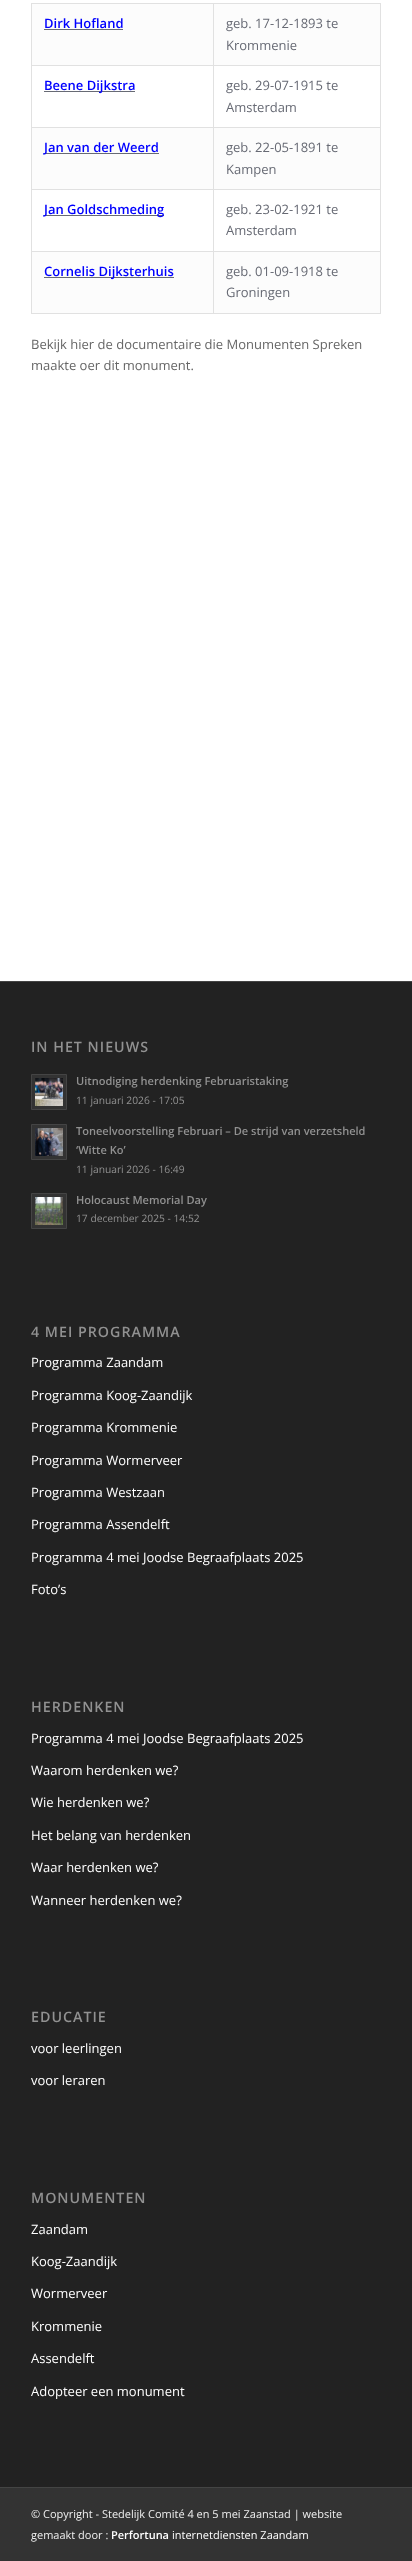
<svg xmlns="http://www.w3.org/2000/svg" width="412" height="2561">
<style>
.a{font:600 13px Open Sans;fill:#00f}
.b{font:13px Open Sans;fill:#676a74}
.c{font:13px Open Sans;fill:#666}
.d{font:600 14.25px Open Sans;letter-spacing:1px;fill:#919191}
.e{font:600 11.05px Open Sans;fill:#919191}
.f{font:10.25px Open Sans;fill:#919191}
.g{font:13px Open Sans;fill:#fff}
.h{font:11px Open Sans;fill:#eee}
.i{font:600 11px Open Sans;fill:#fff}
.j{font:11px Open Sans;fill:#fff}
</style>
<rect width="100%" height="100%" fill="#fff"/>
<path fill="#fcfcfc" d="M32 4h348v309H32z"/>
<path fill="#e1e1e1" d="M31 3h350v1H31z"/>
<path fill="#e1e1e1" d="M380 65h1v249H380z"/>
<path fill="#e1e1e1" d="M380 3h1v63H380z"/>
<path fill="#fff" d="M32 66h348v61H32z"/>
<path fill="#fff" d="M32 190h348v61H32z"/>
<path fill="#e1e1e1" d="M213 313h168v1H213z"/>
<path fill="#e1e1e1" d="M213 251h1v63H213z"/>
<path fill="#e1e1e1" d="M213 251h168v1H213z"/>
<path fill="#e1e1e1" d="M213 189h1v63H213z"/>
<path fill="#e1e1e1" d="M213 189h168v1H213z"/>
<path fill="#e1e1e1" d="M213 127h1v63H213z"/>
<path fill="#e1e1e1" d="M213 127h168v1H213z"/>
<path fill="#e1e1e1" d="M213 65h1v63H213z"/>
<path fill="#e1e1e1" d="M213 65h168v1H213z"/>
<path fill="#e1e1e1" d="M213 3h1v63H213z"/>
<path fill="#e1e1e1" d="M31 313h183v1H31z"/>
<path fill="#e1e1e1" d="M31 251h1v63H31z"/>
<path fill="#e1e1e1" d="M31 251h183v1H31z"/>
<path fill="#e1e1e1" d="M31 189h1v63H31z"/>
<path fill="#e1e1e1" d="M31 189h183v1H31z"/>
<path fill="#e1e1e1" d="M31 127h1v63H31z"/>
<path fill="#e1e1e1" d="M31 127h183v1H31z"/>
<path fill="#e1e1e1" d="M31 65h1v63H31z"/>
<path fill="#e1e1e1" d="M31 65h183v1H31z"/>
<path fill="#e1e1e1" d="M31 3h1v63H31z"/>
<path fill="#676a74" d="M44 29h79v1H44z"/>
<path fill="#676a74" d="M44 91h91v1H44z"/>
<path fill="#676a74" d="M44 153h115v1H44z"/>
<path fill="#676a74" d="M44 215h120v1H44z"/>
<path fill="#676a74" d="M44 277h130v1H44z"/>
<path fill="#222" d="M0 982h412v1505H0z"/>
<path fill="#444" d="M0 981h412v1H0z"/>
<path fill="#333" stroke="#444" d="M31.5 1074.5h35v35H31.5z"/>
<image href="1.png" x="35" y="1078" width="28" height="28"/>
<path fill="#333" stroke="#444" d="M31.5 1124.5h35v35H31.5z"/>
<image href="2.png" x="35" y="1128" width="28" height="28"/>
<path fill="#333" stroke="#444" d="M31.5 1193.5h35v35H31.5z"/>
<image href="3.png" x="35" y="1197" width="28" height="28"/>
<path fill="#333" d="M0 2488h412v73H0z"/>
<path fill="#444" d="M0 2487h412v1H0z"/>
<text class="a" x="44" y="28">Dirk Hofland</text>
<text class="b" x="226" y="28">geb. 17-12-1893 te</text>
<text class="b" x="226" y="50">Krommenie</text>
<text class="a" x="44" y="90">Beene Dijkstra</text>
<text class="b" x="226" y="90">geb. 29-07-1915 te</text>
<text class="b" x="226" y="112">Amsterdam</text>
<text class="a" x="44" y="152">Jan van der Weerd</text>
<text class="b" x="226" y="152">geb. 22-05-1891 te</text>
<text class="b" x="226" y="174">Kampen</text>
<text class="a" x="44" y="214">Jan Goldschmeding</text>
<text class="b" x="226" y="214">geb. 23-02-1921 te</text>
<text class="b" x="226" y="235">Amsterdam</text>
<text class="a" x="44" y="276">Cornelis Dijksterhuis</text>
<text class="b" x="226" y="276">geb. 01-09-1918 te</text>
<text class="b" x="226" y="297">Groningen</text>
<text class="c" x="31" y="349">Bekijk hier de documentaire die Monumenten Spreken</text>
<text class="c" x="31" y="370">maakte oer dit monument.</text>
<text class="d" x="31" y="1052">IN HET NIEUWS</text>
<text class="e" x="76" y="1085">Uitnodiging herdenking Februaristaking</text>
<text class="f" x="76" y="1104">11 januari 2026 - 17:05</text>
<text class="e" x="76" y="1135">Toneelvoorstelling Februari – De strijd van verzetsheld</text>
<text class="e" x="76" y="1154">‘Witte Ko’</text>
<text class="f" x="76" y="1173">11 januari 2026 - 16:49</text>
<text class="e" x="76" y="1204">Holocaust Memorial Day</text>
<text class="f" x="76" y="1222">17 december 2025 - 14:52</text>
<text class="d" x="31" y="1337">4 MEI PROGRAMMA</text>
<text class="g" x="31" y="1367">Programma Zaandam</text>
<text class="g" x="31" y="1400">Programma Koog-Zaandijk</text>
<text class="g" x="31" y="1432">Programma Krommenie</text>
<text class="g" x="31" y="1465">Programma Wormerveer</text>
<text class="g" x="31" y="1497">Programma Westzaan</text>
<text class="g" x="31" y="1529">Programma Assendelft</text>
<text class="g" x="31" y="1562">Programma 4 mei Joodse Begraafplaats 2025</text>
<text class="g" x="31" y="1594">Foto’s</text>
<text class="d" x="31" y="1712">HERDENKEN</text>
<text class="g" x="31" y="1743">Programma 4 mei Joodse Begraafplaats 2025</text>
<text class="g" x="31" y="1775">Waarom herdenken we?</text>
<text class="g" x="31" y="1807">Wie herdenken we?</text>
<text class="g" x="31" y="1840">Het belang van herdenken</text>
<text class="g" x="31" y="1872">Waar herdenken we?</text>
<text class="g" x="31" y="1905">Wanneer herdenken we?</text>
<text class="d" x="31" y="2022">EDUCATIE</text>
<text class="g" x="31" y="2053">voor leerlingen</text>
<text class="g" x="31" y="2085">voor leraren</text>
<text class="d" x="31" y="2203">MONUMENTEN</text>
<text class="g" x="31" y="2234">Zaandam</text>
<text class="g" x="31" y="2266">Koog-Zaandijk</text>
<text class="g" x="31" y="2298">Wormerveer</text>
<text class="g" x="31" y="2331">Krommenie</text>
<text class="g" x="31" y="2363">Assendelft</text>
<text class="g" x="31" y="2396">Adopteer een monument</text>
<text class="h" x="31" y="2518">© Copyright - Stedelijk Comité 4 en 5 mei Zaanstad | website</text>
<text class="h" x="31" y="2539">gemaakt door :</text>
<text class="i" x="111" y="2539">Perfortuna</text>
<text class="j" x="172" y="2539">internetdiensten Zaandam</text>
</svg>
